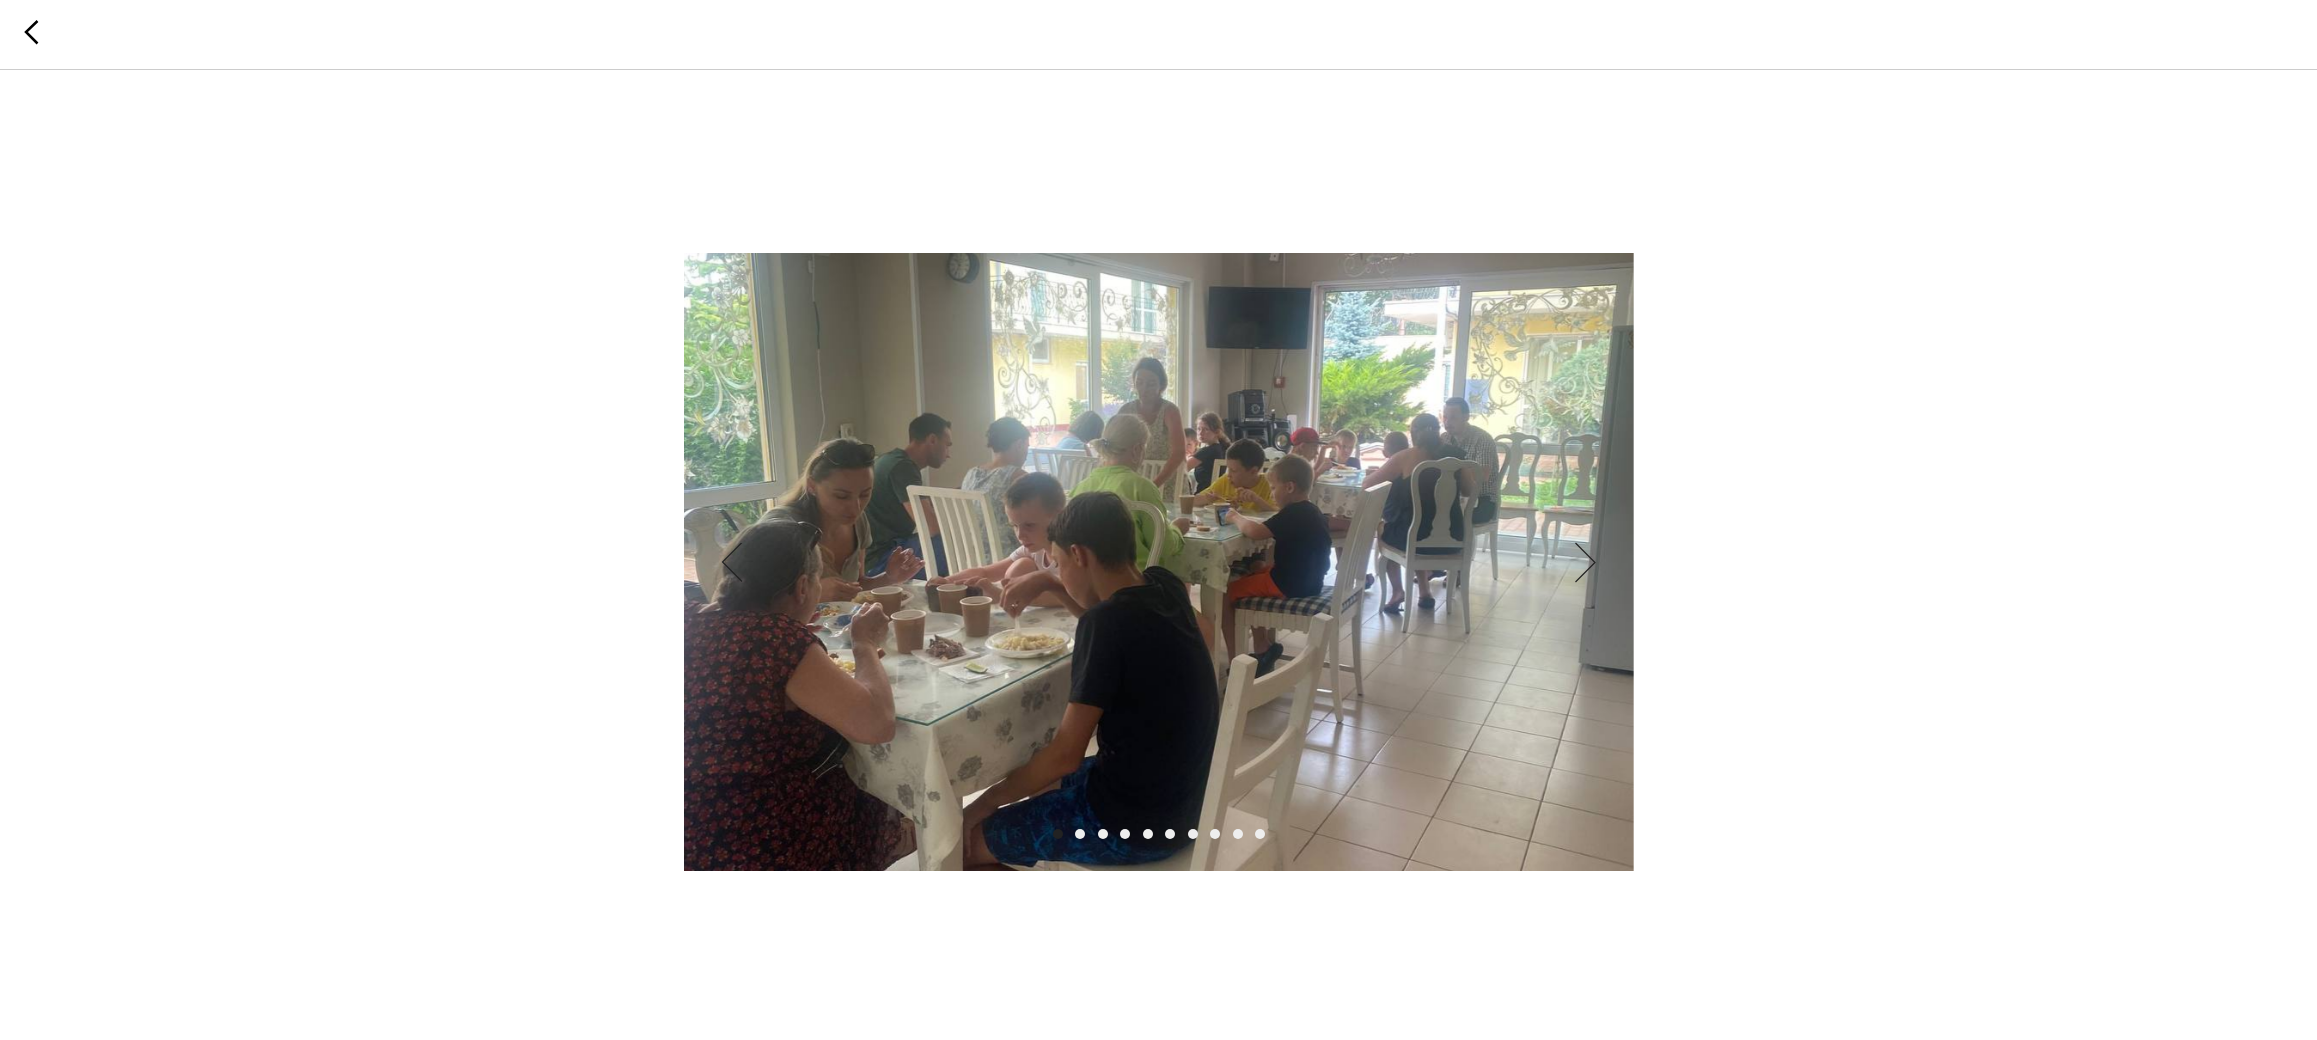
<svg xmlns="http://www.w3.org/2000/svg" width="2317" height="1040">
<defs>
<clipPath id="clip1"><path d="M721 543h22v40H721z"/></clipPath>
</defs>
<rect width="100%" height="100%" fill="#fff"/>
<path fill="#ccc" d="M0 69h2317v1H0z"/>
<path fill="none" stroke="#000" stroke-width="2.5" d="M37.5 43.5l-11.5-11.5l11.5-11"/>
<image href="1.png" x="684" y="253" width="950" height="618"/>
<g clip-path="url(#clip1)">
<path fill="none" stroke="#222" stroke-width="1.2" d="M742 581.5l-19.5-19.5l19.5-19.5"/>
</g>
<path fill="none" stroke="#222" stroke-width="1.2" d="M1575.5 543l19.5 19.5l-19.5 19.5"/>
<circle fill="#222" cx="1058" cy="834" r="5"/>
<circle fill="#eee" cx="1080" cy="834" r="5"/>
<circle fill="#eee" cx="1103" cy="834" r="5"/>
<circle fill="#eee" cx="1125" cy="834" r="5"/>
<circle fill="#eee" cx="1148" cy="834" r="5"/>
<circle fill="#eee" cx="1170" cy="834" r="5"/>
<circle fill="#eee" cx="1193" cy="834" r="5"/>
<circle fill="#eee" cx="1215" cy="834" r="5"/>
<circle fill="#eee" cx="1238" cy="834" r="5"/>
<circle fill="#eee" cx="1260" cy="834" r="5"/>
</svg>
